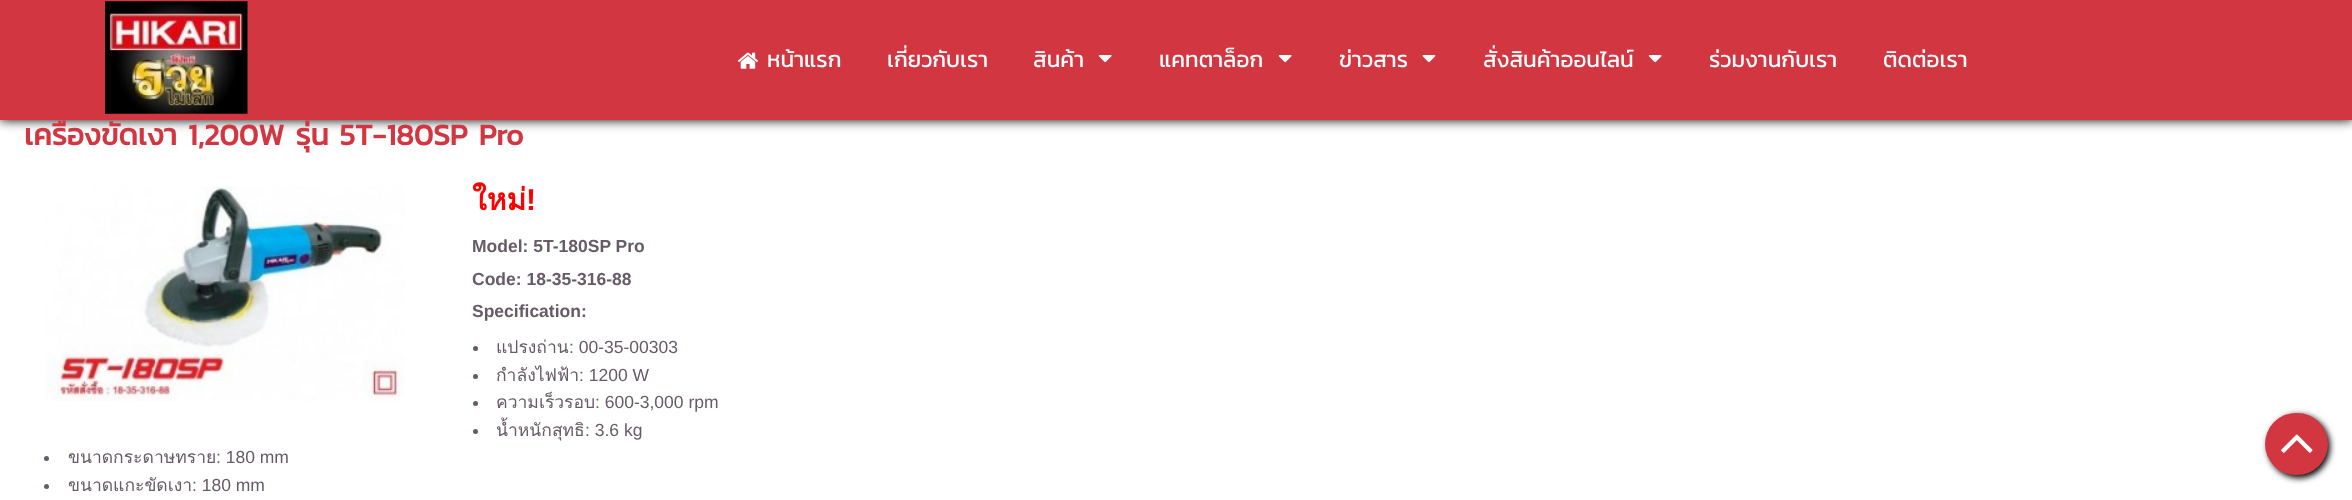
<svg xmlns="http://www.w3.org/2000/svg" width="2352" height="500">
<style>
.a{font:22.5px Kanit;fill:#fff}
.b{font:bold 30px Kanit;fill:#d23641}
.c{font:bold 30px Loma;fill:#f00}
.d{font:bold 30px Liberation Sans;fill:#f00}
.e{font:bold 17.5px Liberation Sans;fill:#665b66}
.f{font:17.5px Loma;fill:#665b66}
.g{font:17.5px Liberation Sans;fill:#665b66}
</style>
<rect width="100%" height="100%" fill="#fff"/>
<path fill="#000" filter="blur(6px)" d="M0 0h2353v120H0z"/>
<path fill="#d23641" d="M0 0h2352v120H0z"/>
<image href="1.png" x="105" y="1" width="143" height="113"/>
<image href="2.png" x="737" y="52" width="21" height="17"/>
<image href="3.png" x="1098" y="55" width="14" height="8"/>
<image href="3.png" x="1278" y="55" width="14" height="8"/>
<image href="4.png" x="1422" y="55" width="14" height="8"/>
<image href="3.png" x="1648" y="55" width="14" height="8"/>
<circle fill="#665b66" cx="475.5" cy="348.5" r="2.5"/>
<circle fill="#665b66" cx="475.5" cy="376.5" r="2.5"/>
<circle fill="#665b66" cx="475.5" cy="403.5" r="2.5"/>
<circle fill="#665b66" cx="475.5" cy="431.5" r="2.5"/>
<circle fill="#665b66" cx="46.5" cy="458.5" r="2.5"/>
<circle fill="#665b66" cx="46.5" cy="486.5" r="2.5"/>
<image href="5.png" x="45" y="186" width="360" height="215"/>
<rect fill="#000" filter="blur(3px)" x="2268" y="415" width="62" height="63" rx="31"/>
<rect fill="#d23641" x="2265" y="413" width="63" height="62" rx="31"/>
<image href="6.png" x="2281" y="434" width="32" height="19"/>
<text class="a" x="767" y="67">หน้าแรก</text>
<text class="a" x="887" y="67">เกี่ยวกับเรา</text>
<text class="a" x="1033" y="67">สินค้า</text>
<text class="a" x="1159" y="67">แคทตาล็อก</text>
<text class="a" x="1339" y="67">ข่าวสาร</text>
<text class="a" x="1483" y="67">สั่งสินค้าออนไลน์</text>
<text class="a" x="1709" y="67">ร่วมงานกับเรา</text>
<text class="a" x="1883" y="67">ติดต่อเรา</text>
<text class="b" x="24" y="145">เครื่องขัดเงา 1,200W รุ่น 5T-180SP Pro</text>
<text class="c" x="472" y="210">ใหม่</text>
<text class="d" x="526" y="210">!</text>
<text class="e" x="472" y="252">Model: 5T-180SP Pro</text>
<text class="e" x="472" y="285">Code: 18-35-316-88</text>
<text class="e" x="472" y="317">Specification:</text>
<text class="f" x="496" y="353">แปรงถ่าน</text>
<text class="g" x="569" y="353">: 00-35-00303</text>
<text class="f" x="496" y="381">กำลังไฟฟ้า</text>
<text class="g" x="579" y="381">: 1200 W</text>
<text class="f" x="496" y="408">ความเร็วรอบ</text>
<text class="g" x="595" y="408">: 600-3,000 rpm</text>
<text class="f" x="496" y="436">น้ำหนักสุทธิ</text>
<text class="g" x="585" y="436">: 3.6 kg</text>
<text class="f" x="68" y="463">ขนาดกระดาษทราย</text>
<text class="g" x="216" y="463">: 180 mm</text>
<text class="f" x="68" y="491">ขนาดแกะขัดเงา</text>
<text class="g" x="192" y="491">: 180 mm</text>
</svg>
